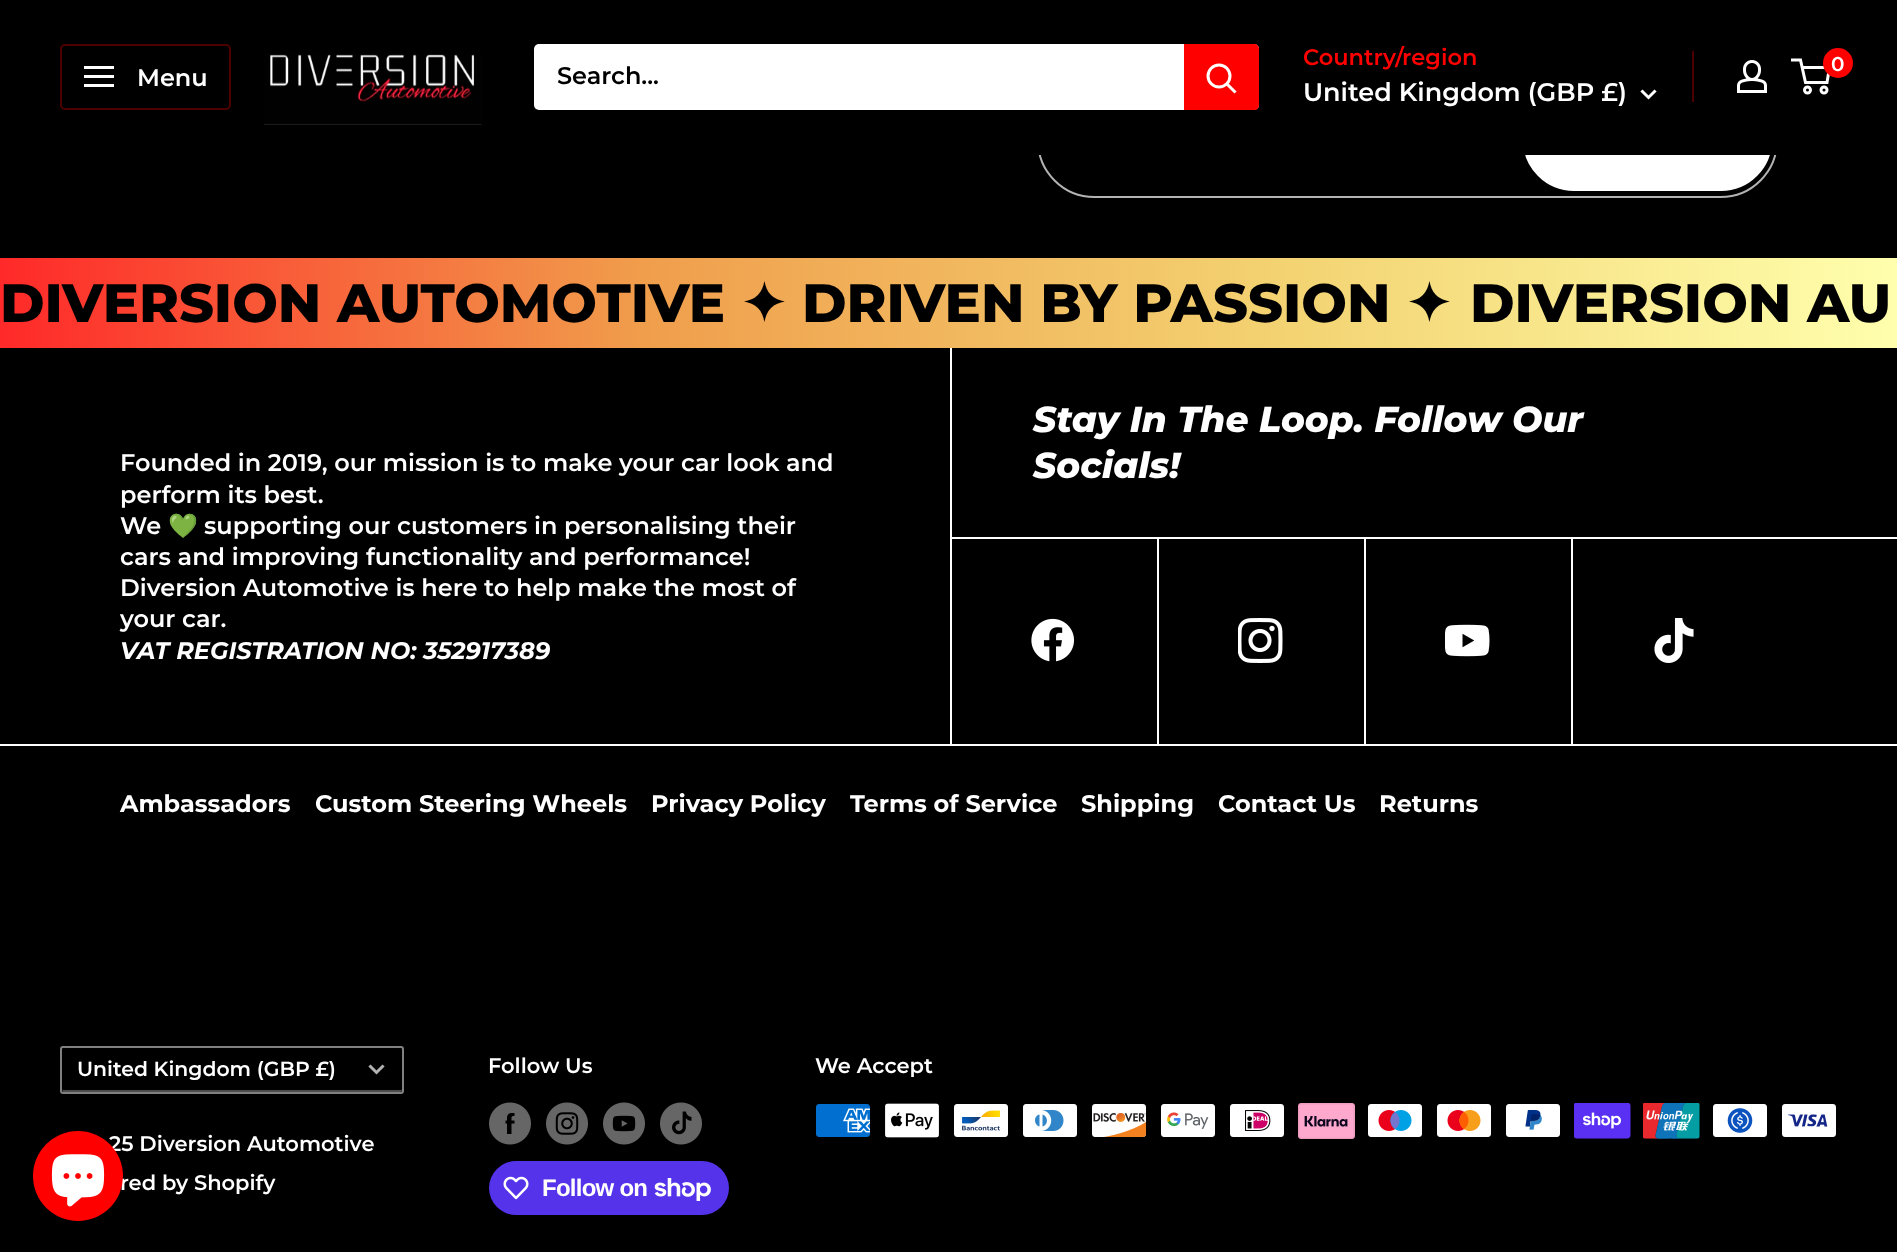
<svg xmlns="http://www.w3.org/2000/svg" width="1897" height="1252">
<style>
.a{font:600 24px Montserrat;fill:#fff}
.b{font:600 24px Montserrat;fill:#000}
.c{font:600 22.5px Montserrat;fill:#f00}
.d{font:600 25.5px Montserrat;fill:#fff}
.e{font:600 20px Montserrat;fill:#fff}
.f{font:800 54px Montserrat;fill:#000}
.g{font:bold 54px DejaVu Sans;fill:#000}
.h{font:italic 800 36px Montserrat;fill:#fff}
.i{font:bold 24px Noto Color Emoji;fill:#fff}
.j{font:italic bold 24px Montserrat;fill:#fff}
.k{font:bold 24px Montserrat;fill:#fff}
.l{font:600 20.4px Montserrat;fill:#fff}
.m{font:600 21px Montserrat;fill:#fff}
.n{font:bold 24px Liberation Sans;letter-spacing:-0.75px;fill:#fff}
</style>
<defs>
<linearGradient id="g1" gradientUnits="userSpaceOnUse" x1="0" y1="303" x2="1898" y2="303"><stop offset="0" stop-color="#ff2929"/><stop offset="0.34" stop-color="#f09e4c"/><stop offset="0.68" stop-color="#f3d372"/><stop offset="1" stop-color="#ffffad"/></linearGradient>
</defs>
<rect width="100%" height="100%" fill="#000"/>
<rect fill="none" stroke="#b3b3b3" stroke-width="2" x="1038" y="84" width="739" height="113" rx="56.5"/>
<rect fill="#fff" stroke="#fff" stroke-width="2" x="1524" y="90" width="247" height="100" rx="50"/>
<path fill="#000" d="M1037 83h741v72H1037z"/>
<rect fill="none" stroke="#4d0000" stroke-width="2" x="61" y="45" width="169" height="64" rx="4"/>
<image href="1.png" x="84" y="66" width="30" height="21"/>
<image href="2.png" x="264" y="54" width="218" height="71"/>
<rect fill="#fff" x="534" y="44" width="725" height="66" rx="5"/>
<path fill="#f00" d="M1184 44h70c3 0 5 2 5 5v56c0 3-2 5-5 5h-70z"/>
<path fill="none" stroke="#fff" stroke-width="3" stroke-linecap="square" d="M1234.5 91.5l-7.5-7.5"/>
<circle fill="none" stroke="#fff" stroke-width="3" cx="1219" cy="76" r="11"/>
<path fill="none" stroke="#fff" stroke-width="3" stroke-linecap="square" d="M1654.5 91.5l-6 6l-6-6"/>
<path fill="#4d0000" d="M1692 51h2v51H1692z"/>
<image href="3.png" x="1737" y="60" width="30" height="33"/>
<circle fill="none" stroke="#fff" stroke-width="3" cx="1807.5" cy="90" r="3"/>
<circle fill="none" stroke="#fff" stroke-width="3" cx="1824" cy="90" r="3"/>
<path fill="none" stroke="#fff" stroke-width="3" d="M1802 67.5h27.5l-2.5 15h-21.5l-5-22.5h-9.5"/>
<circle fill="#f00" cx="1838" cy="63" r="15"/>
<path fill="url(#g1)" d="M0 258h1897v90H0z"/>
<path fill="#fff" d="M950 348h2v396H950z"/>
<path fill="#fff" d="M1157 537h2v207H1157z"/>
<path fill="#fff" d="M1364 537h2v207H1364z"/>
<path fill="#fff" d="M1571 537h2v207H1571z"/>
<path fill="#fff" d="M951 537h946v2H951z"/>
<image href="4.png" x="1031" y="618" width="43" height="44"/>
<image href="5.png" x="1238" y="618" width="45" height="45"/>
<image href="6.png" x="1445" y="624" width="45" height="33"/>
<image href="7.png" x="1654" y="618" width="40" height="45"/>
<path fill="#fff" d="M0 744h1897v2H0z"/>
<path fill="#4d4d4d" d="M62 1089l1 3h337c2 0 2-2 2-3c0 1-1 1-2 1h-337c-1 0-1 0-1-1z"/>
<rect fill="none" stroke="#808080" stroke-width="2" x="61" y="1047" width="342" height="46" rx="2"/>
<path fill="none" stroke="#b3b3b3" stroke-width="3" stroke-linecap="square" d="M382.5 1066.5l-6 6l-6-6"/>
<image href="8.png" x="489" y="1102" width="42" height="43"/>
<image href="9.png" x="546" y="1102" width="42" height="43"/>
<image href="10.png" x="603" y="1102" width="42" height="43"/>
<image href="11.png" x="660" y="1102" width="42" height="43"/>
<rect fill="#5433eb" x="489" y="1161" width="240" height="54" rx="27"/>
<image href="12.png" x="503" y="1176" width="26" height="24"/>
<image href="13.png" x="654" y="1178" width="57" height="23"/>
<image href="14.png" x="816" y="1104" width="54" height="33"/>
<image href="15.png" x="885" y="1103" width="54" height="35"/>
<image href="16.png" x="954" y="1104" width="54" height="33"/>
<image href="17.png" x="1023" y="1104" width="54" height="33"/>
<image href="18.png" x="1092" y="1104" width="55" height="33"/>
<image href="19.png" x="1161" y="1104" width="54" height="33"/>
<image href="20.png" x="1230" y="1104" width="54" height="33"/>
<image href="21.png" x="1298" y="1103" width="57" height="36"/>
<image href="22.png" x="1368" y="1104" width="54" height="33"/>
<image href="23.png" x="1437" y="1104" width="54" height="33"/>
<image href="24.png" x="1506" y="1104" width="54" height="33"/>
<image href="25.png" x="1574" y="1103" width="57" height="36"/>
<image href="26.png" x="1643" y="1103" width="57" height="36"/>
<image href="27.png" x="1713" y="1104" width="54" height="33"/>
<image href="28.png" x="1782" y="1104" width="54" height="33"/>
<text class="a" x="137" y="86">Menu</text>
<text class="b" x="557" y="84">Search...</text>
<text class="c" x="1303" y="65">Country/region</text>
<text class="d" x="1303" y="101">United Kingdom (GBP £)</text>
<text class="e" x="1831" y="71">0</text>
<text class="f" x="0" y="322">DIVERSION AUTOMOTIVE</text>
<text class="g" x="741" y="322">✦</text>
<text class="f" x="802" y="322">DRIVEN BY PASSION</text>
<text class="g" x="1406" y="322">✦</text>
<text class="f" x="1470" y="322">DIVERSION AU</text>
<text class="h" x="1033" y="432">Stay In The Loop. Follow Our</text>
<text class="h" x="1033" y="478">Socials!</text>
<text class="a" x="120" y="471">Founded in 2019, our mission is to make your car look and</text>
<text class="a" x="120" y="503">perform its best.</text>
<text class="a" x="120" y="534">We</text>
<text class="i" x="168" y="534">💚</text>
<text class="a" x="204" y="534">supporting our customers in personalising their</text>
<text class="a" x="120" y="565">cars and improving functionality and performance!</text>
<text class="a" x="120" y="596">Diversion Automotive is here to help make the most of</text>
<text class="a" x="120" y="627">your car.</text>
<text class="j" x="120" y="659">VAT REGISTRATION NO: 352917389</text>
<text class="k" x="120" y="812">Ambassadors</text>
<text class="k" x="315" y="812">Custom Steering Wheels</text>
<text class="k" x="651" y="812">Privacy Policy</text>
<text class="k" x="850" y="812">Terms of Service</text>
<text class="k" x="1081" y="812">Shipping</text>
<text class="k" x="1218" y="812">Contact Us</text>
<text class="k" x="1379" y="812">Returns</text>
<text class="l" x="77" y="1076">United Kingdom (GBP £)</text>
<text class="m" x="109" y="1151">25 Diversion Automotive</text>
<text class="m" x="120" y="1190">red by Shopify</text>
<text class="m" x="488" y="1073">Follow Us</text>
<text class="n" x="542" y="1196">Follow on</text>
<text class="m" x="815" y="1073">We Accept</text>
<circle fill="#f00" cx="78" cy="1176" r="45"/>
<image href="29.png" x="51" y="1154" width="54" height="53"/>
</svg>
